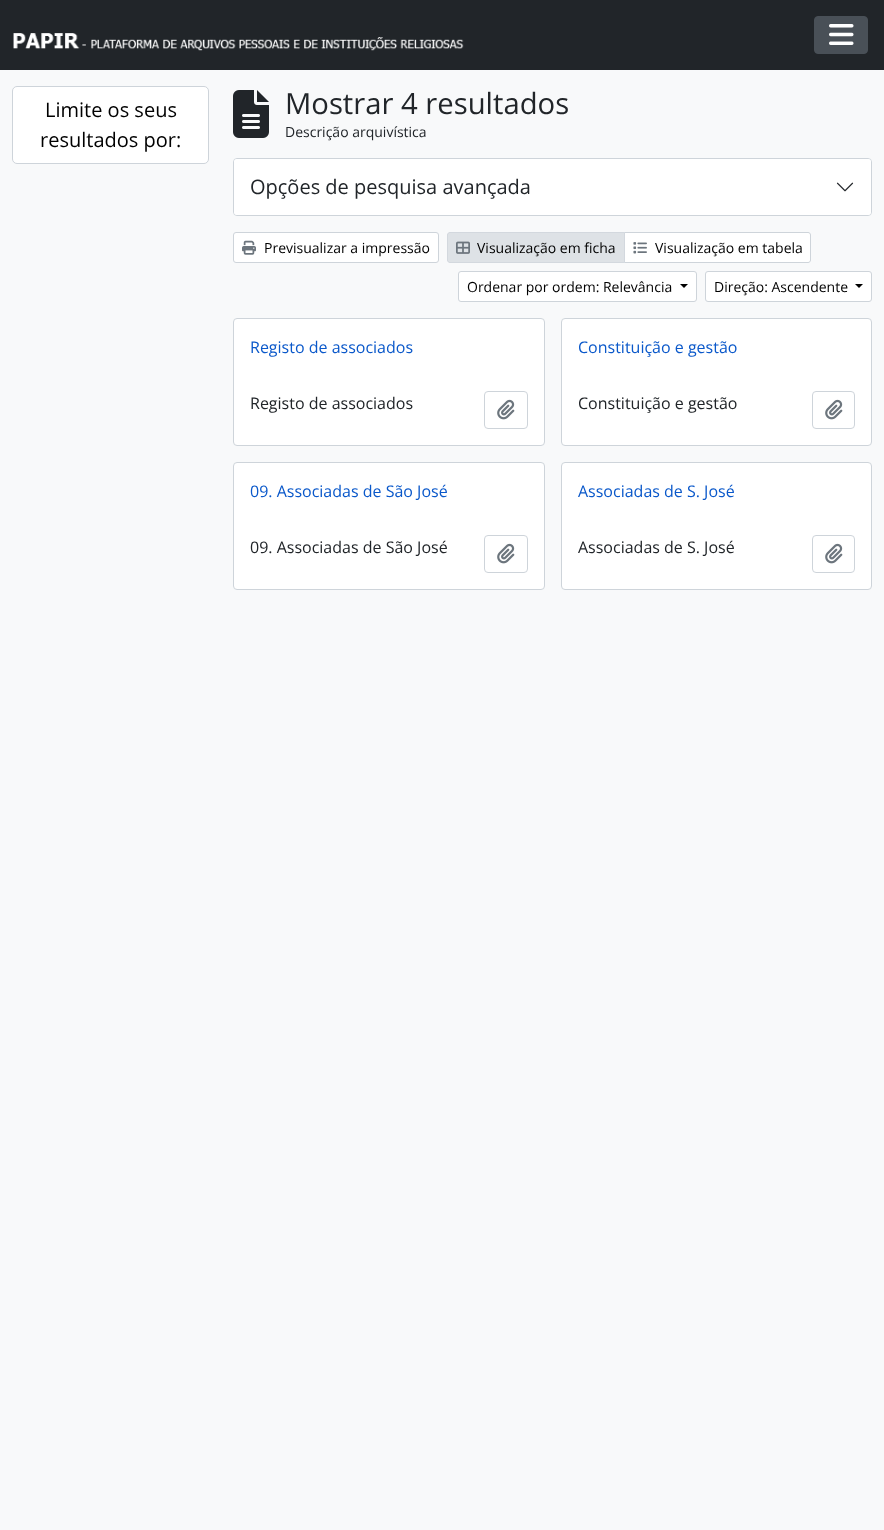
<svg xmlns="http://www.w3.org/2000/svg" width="884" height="1530">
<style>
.a{font:20px Open Sans;fill:#000}
.b{font:29.25px Open Sans;fill:#212529}
.c{font:14px Open Sans;fill:#212529}
.d{font:20px Open Sans;fill:#212529}
.e{font:14px Open Sans;fill:#000}
.f{font:16px Open Sans;fill:#0a58ca}
.g{font:16px Open Sans;fill:#212529}
</style>
<rect width="100%" height="100%" fill="#f8f9fa"/>
<path fill="#212529" d="M0 0h884v70H0z"/>
<image href="1.png" x="13" y="33" width="451" height="18"/>
<rect fill="#495057" stroke="#495057" x="814.5" y="16.5" width="53" height="37" rx="3.5"/>
<image href="2.png" x="829" y="24" width="25" height="21"/>
<rect fill="#fff" stroke="#ced4da" x="12.5" y="86.5" width="196" height="77" rx="4.5"/>
<image href="3.png" x="233" y="90" width="36" height="48"/>
<rect fill="none" stroke="#ced4da" x="233.5" y="158.5" width="638" height="57" rx="3.5"/>
<rect fill="#fff" x="234" y="159" width="637" height="56" rx="3"/>
<image href="4.png" x="836" y="182" width="18" height="10"/>
<rect fill="#fff" stroke="#ced4da" x="233.5" y="232.5" width="205" height="30" rx="2.5"/>
<image href="5.png" x="242" y="240" width="14" height="15"/>
<path fill="#fff" stroke="#ced4da" d="M624.5 232.5h183.5c1.5 0 2.5 1 2.5 2.5v25c0 1.5-1 2.5-2.5 2.5h-183.5z"/>
<path fill="#dee2e6" stroke="#d3d8de" d="M450 232.5h174.5v30h-174.5c-1.5 0-2.5-1-2.5-2.5v-25c0-1.5 1-2.5 2.5-2.5z"/>
<image href="6.png" x="456" y="241" width="14" height="13"/>
<image href="7.png" x="633" y="242" width="14" height="12"/>
<rect fill="#fff" stroke="#ced4da" x="458.5" y="271.5" width="238" height="30" rx="2.5"/>
<path fill="#000" d="M680 284h8l-4 4z"/>
<rect fill="#fff" stroke="#ced4da" x="705.5" y="271.5" width="166" height="30" rx="2.5"/>
<path fill="#000" d="M855 284h8l-4 4z"/>
<rect fill="#fff" stroke="#ced4da" x="233.5" y="318.5" width="311" height="127" rx="3.5"/>
<rect fill="none" stroke="#ced4da" x="484.5" y="391.5" width="43" height="37" rx="3.5"/>
<image href="8.png" x="497" y="399" width="18" height="21"/>
<rect fill="#fff" stroke="#ced4da" x="561.5" y="318.5" width="310" height="127" rx="3.5"/>
<rect fill="none" stroke="#ced4da" x="812.5" y="391.5" width="42" height="37" rx="3.5"/>
<image href="8.png" x="825" y="399" width="18" height="21"/>
<rect fill="#fff" stroke="#ced4da" x="233.5" y="462.5" width="311" height="127" rx="3.5"/>
<rect fill="none" stroke="#ced4da" x="484.5" y="535.5" width="43" height="37" rx="3.5"/>
<image href="8.png" x="497" y="543" width="18" height="21"/>
<rect fill="#fff" stroke="#ced4da" x="561.5" y="462.5" width="310" height="127" rx="3.5"/>
<rect fill="none" stroke="#ced4da" x="812.5" y="535.5" width="42" height="37" rx="3.5"/>
<image href="8.png" x="825" y="543" width="18" height="21"/>
<text class="a" x="45" y="117">Limite os seus</text>
<text class="a" x="40" y="147">resultados por:</text>
<text class="b" x="285" y="114">Mostrar 4 resultados</text>
<text class="c" x="285" y="137">Descrição arquivística</text>
<text class="d" x="250" y="194">Opções de pesquisa avançada</text>
<text class="e" x="264" y="253">Previsualizar a impressão</text>
<text class="e" x="477" y="253">Visualização em ficha</text>
<text class="e" x="655" y="253">Visualização em tabela</text>
<text class="e" x="467" y="292">Ordenar por ordem: Relevância</text>
<text class="e" x="714" y="292">Direção: Ascendente</text>
<text class="f" x="250" y="353">Registo de associados</text>
<text class="g" x="250" y="409">Registo de associados</text>
<text class="f" x="578" y="353">Constituição e gestão</text>
<text class="g" x="578" y="409">Constituição e gestão</text>
<text class="f" x="250" y="497">09. Associadas de São José</text>
<text class="g" x="250" y="553">09. Associadas de São José</text>
<text class="f" x="578" y="497">Associadas de S. José</text>
<text class="g" x="578" y="553">Associadas de S. José</text>
</svg>
